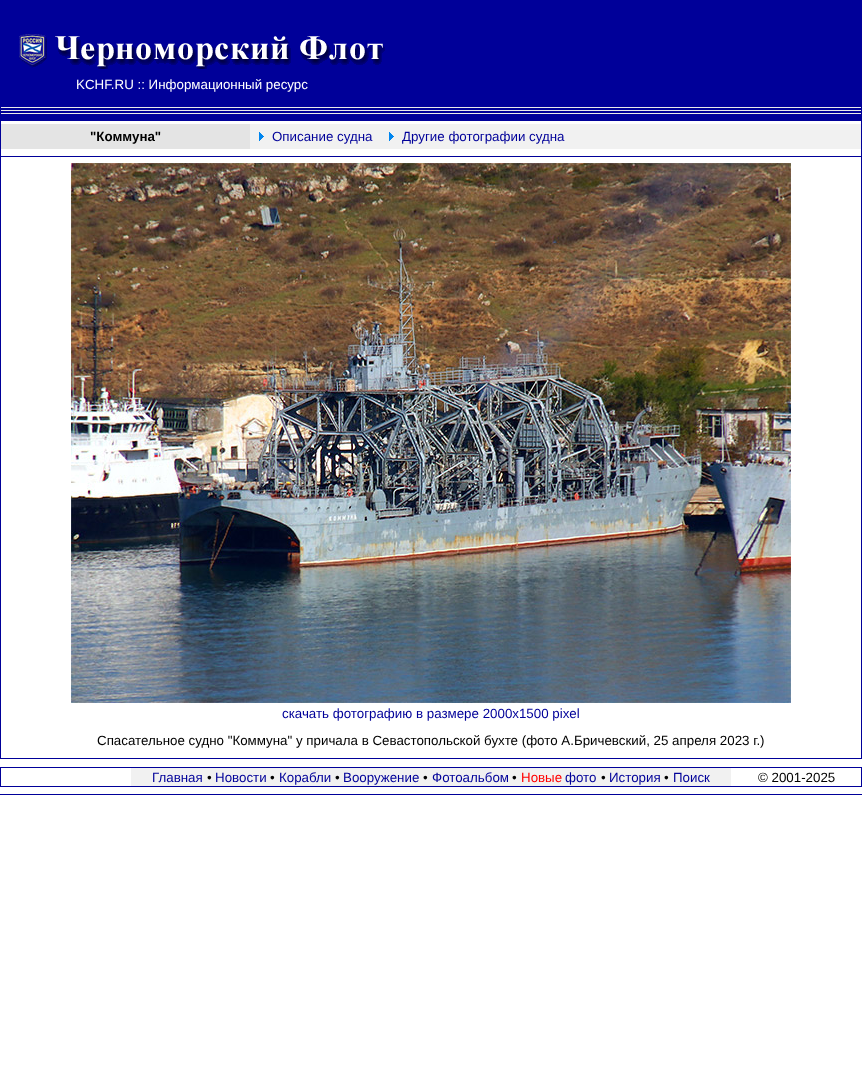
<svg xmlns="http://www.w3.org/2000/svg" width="862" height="1075">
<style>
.a{font:13.33px Liberation Sans;fill:#fff}
.b{font:bold 13.33px Liberation Sans;fill:#000}
.c{font:13.33px Liberation Sans;fill:#009}
.d{font:13.33px Liberation Sans;fill:#000}
.e{font:13.33px Liberation Sans;fill:#f00}
</style>
<rect width="100%" height="100%" fill="#fff"/>
<path fill="#009" d="M0 0h862v759H0z"/>
<path fill="#fff" d="M1 121h860v637H1z"/>
<image href="1.png" x="19" y="34" width="366" height="35"/>
<image href="2.png" x="1" y="107" width="860" height="7"/>
<path fill="#e4e4e4" d="M1 124h249v25H1z"/>
<path fill="#f1f1f1" d="M250 124h611v25H250z"/>
<image href="3.png" x="259" y="132" width="5" height="9"/>
<image href="3.png" x="389" y="132" width="5" height="9"/>
<path fill="#009" d="M1 156h860v1H1z"/>
<image href="4.png" x="71" y="163" width="720" height="540"/>
<path fill="#009" d="M0 767h862v20H0z"/>
<path fill="#fff" d="M1 768h860v18H1z"/>
<path fill="#f1f1f1" d="M131 768h600v18H131z"/>
<path fill="#009" d="M0 794h862v1H0z"/>
<text class="a" x="76" y="89">KCHF.RU :: Информационный ресурс</text>
<text class="b" x="90" y="141">"Коммуна"</text>
<text class="c" x="272" y="141">Описание судна</text>
<text class="c" x="402" y="141">Другие фотографии судна</text>
<text class="c" x="282" y="718">скачать фотографию в размере 2000х1500 pixel</text>
<text class="d" x="97" y="745">Спасательное судно "Коммуна" у причала в Севастопольской бухте (фото А.Бричевский, 25 апреля 2023 г.)</text>
<text class="c" x="152" y="782">Главная</text>
<text class="d" x="207" y="782">•</text>
<text class="c" x="215" y="782">Новости</text>
<text class="d" x="270" y="782">•</text>
<text class="c" x="279" y="782">Корабли</text>
<text class="d" x="335" y="782">•</text>
<text class="c" x="343" y="782">Вооружение</text>
<text class="d" x="423" y="782">•</text>
<text class="c" x="432" y="782">Фотоальбом</text>
<text class="d" x="512" y="782">•</text>
<text class="e" x="521" y="782">Новые</text>
<text class="c" x="565" y="782">фото</text>
<text class="d" x="601" y="782">•</text>
<text class="c" x="609" y="782">История</text>
<text class="d" x="664" y="782">•</text>
<text class="c" x="673" y="782">Поиск</text>
<text class="d" x="758" y="782">© 2001-2025</text>
</svg>
